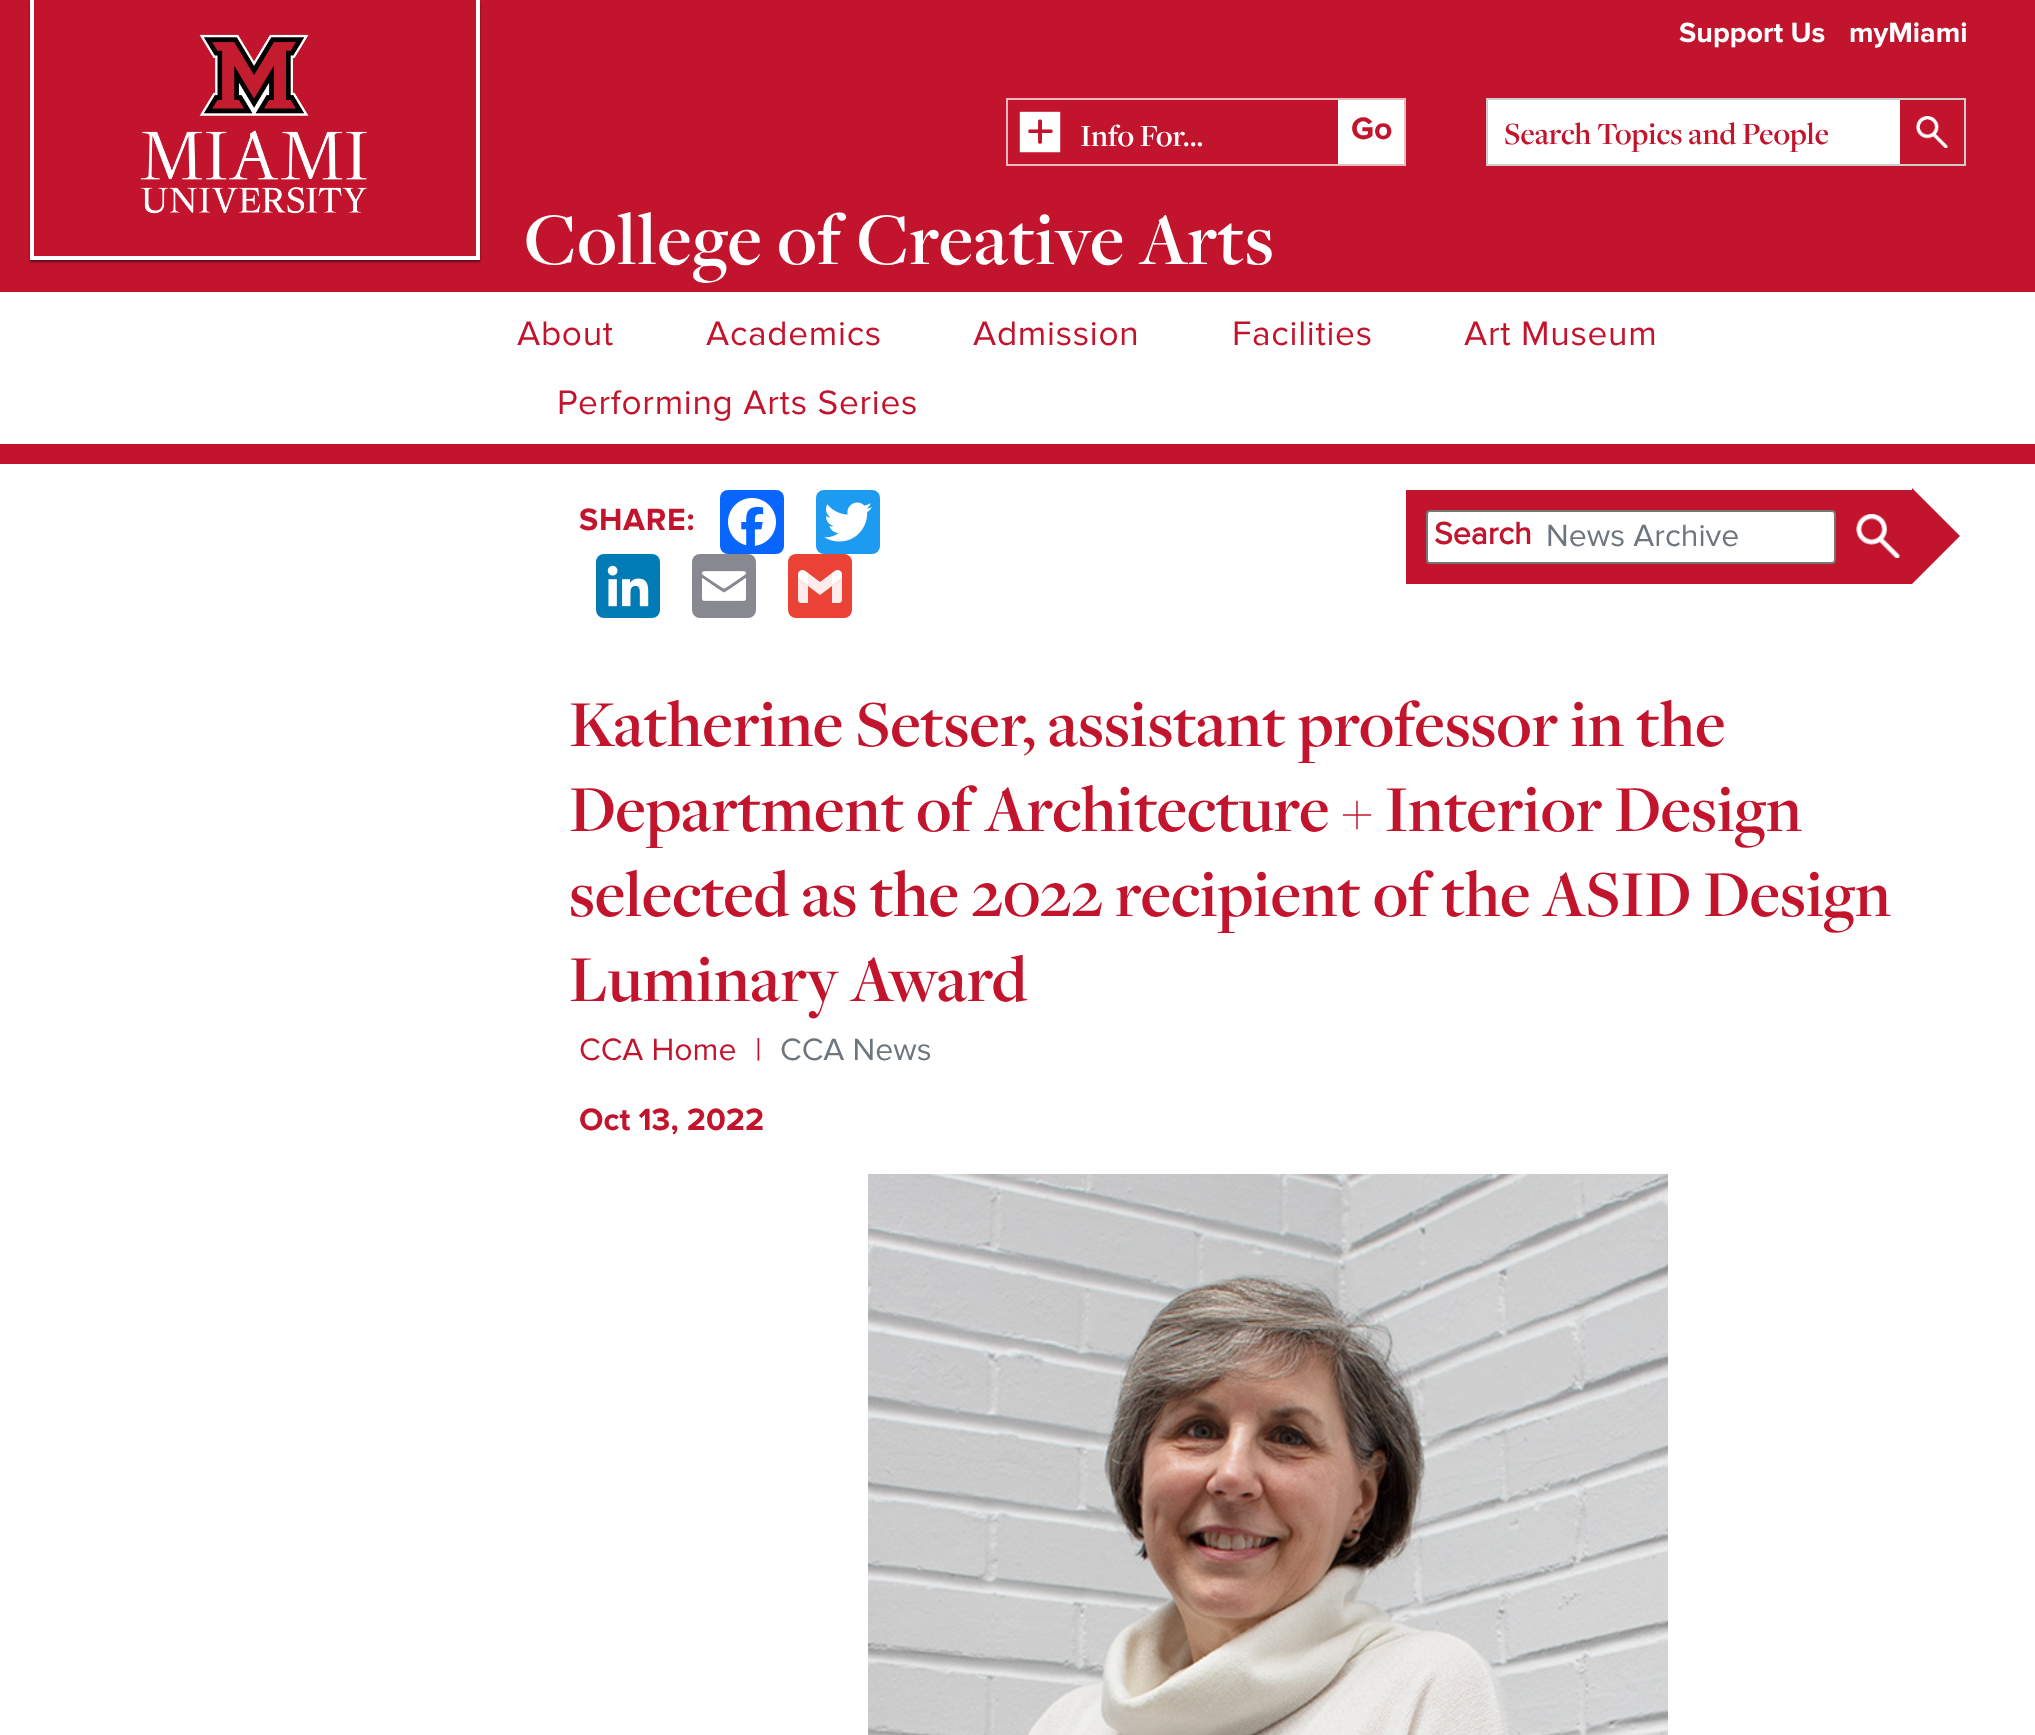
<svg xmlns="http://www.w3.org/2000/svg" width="2035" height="1735">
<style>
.a{font:bold 28.75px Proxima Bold;fill:#fff}
.b{font:600 32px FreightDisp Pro;fill:#fff}
.c{font:bold 32px Proxima Bold;fill:#c3142d}
.d{font:600 32px FreightDisp Pro;fill:#c3142d}
.e{font:600 76.5px FreightDisp Pro;letter-spacing:0.75px;fill:#fff}
.f{font:35.25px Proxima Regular;letter-spacing:0.7px;fill:#c3142d}
.g{font:bold 32px Proxima Bold;letter-spacing:0.75px;fill:#c3142d}
.h{font:bold 32px Proxima Regular;fill:#c3142d}
.i{font:32px Proxima Regular;fill:#6d767e}
.j{font:600 68px FreightDisp Pro;fill:#c3142d}
.k{font:32px Proxima Regular;fill:#c3142d}
</style>
<defs>
<clipPath id="clip1"><path d="M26 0h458v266h-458zm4 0h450v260h-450z" clip-rule="evenodd"/></clipPath>
</defs>
<rect width="100%" height="100%" fill="#fff"/>
<path fill="#c3142d" d="M0 0h2035v464H0z"/>
<g clip-path="url(#clip1)">
<path fill="#00000080" filter="blur(1px)" d="M30 2h450v260H30z"/>
</g>
<path fill="#fff" d="M476 0h4v260H476z"/>
<path fill="#fff" d="M30 256h450v4H30z"/>
<path fill="#fff" d="M30 0h4v260H30z"/>
<image href="1.png" x="140" y="34" width="228" height="180"/>
<path fill="none" stroke="#edb9c0" stroke-width="2" d="M1007 99h398v66H1007z"/>
<image href="2.png" x="1019" y="111" width="42" height="42"/>
<path fill="#fff" d="M1338 100h66v64H1338z"/>
<path fill="none" stroke="#ccc" stroke-width="2" d="M1487 99h478v66H1487z"/>
<path fill="#fff" d="M1488 100h412v64H1488z"/>
<image href="3.png" x="1916" y="116" width="32" height="32"/>
<path fill="#fff" d="M0 292h2035v152H0z"/>
<rect fill="#0866ff" x="720" y="490" width="64" height="64" rx="8"/>
<image href="4.png" x="728" y="498" width="48" height="48"/>
<rect fill="#1d9bf0" x="816" y="490" width="64" height="64" rx="8"/>
<image href="5.png" x="824" y="502" width="48" height="40"/>
<rect fill="#007bb5" x="596" y="554" width="64" height="64" rx="8"/>
<image href="6.png" x="607" y="565" width="42" height="42"/>
<rect fill="#888990" x="692" y="554" width="64" height="64" rx="8"/>
<image href="7.png" x="702" y="571" width="44" height="30"/>
<rect fill="#ea4335" x="788" y="554" width="64" height="64" rx="8"/>
<image href="8.png" x="798" y="570" width="44" height="33"/>
<path fill="#c3142d" d="M1406 490h506v94H1406z"/>
<rect fill="#fff" stroke="#767676" stroke-width="2" x="1427" y="511" width="408" height="52" rx="3"/>
<image href="9.png" x="1856" y="514" width="44" height="44"/>
<path fill="#c3142d" d="M1912 584v-96l48 48z"/>
<image href="10.png" x="868" y="1174" width="800" height="561"/>
<text class="a" x="1679" y="42">Support Us</text>
<text class="a" x="1849" y="42">myMiami</text>
<text class="b" x="1080" y="146">Info For...</text>
<text class="c" x="1351" y="139">Go</text>
<text class="d" x="1504" y="144">Search Topics and People</text>
<text class="e" x="524" y="264">College of Creative Arts</text>
<text class="f" x="517" y="345">About</text>
<text class="f" x="706" y="345">Academics</text>
<text class="f" x="973" y="345">Admission</text>
<text class="f" x="1232" y="345">Facilities</text>
<text class="f" x="1464" y="345">Art Museum</text>
<text class="f" x="557" y="414">Performing Arts Series</text>
<text class="g" x="579" y="530">SHARE:</text>
<text class="h" x="1434" y="544">Search</text>
<text class="i" x="1546" y="546">News Archive</text>
<text class="j" x="569" y="746">Katherine Setser, assistant professor in the</text>
<text class="j" x="569" y="831">Department of Architecture + Interior Design</text>
<text class="j" x="569" y="916">selected as the 2022 recipient of the ASID Design</text>
<text class="j" x="569" y="1001">Luminary Award</text>
<text class="k" x="579" y="1060">CCA Home</text>
<text class="k" x="755" y="1060">|</text>
<text class="i" x="780" y="1060">CCA News</text>
<text class="c" x="579" y="1130">Oct 13, 2022</text>
</svg>
